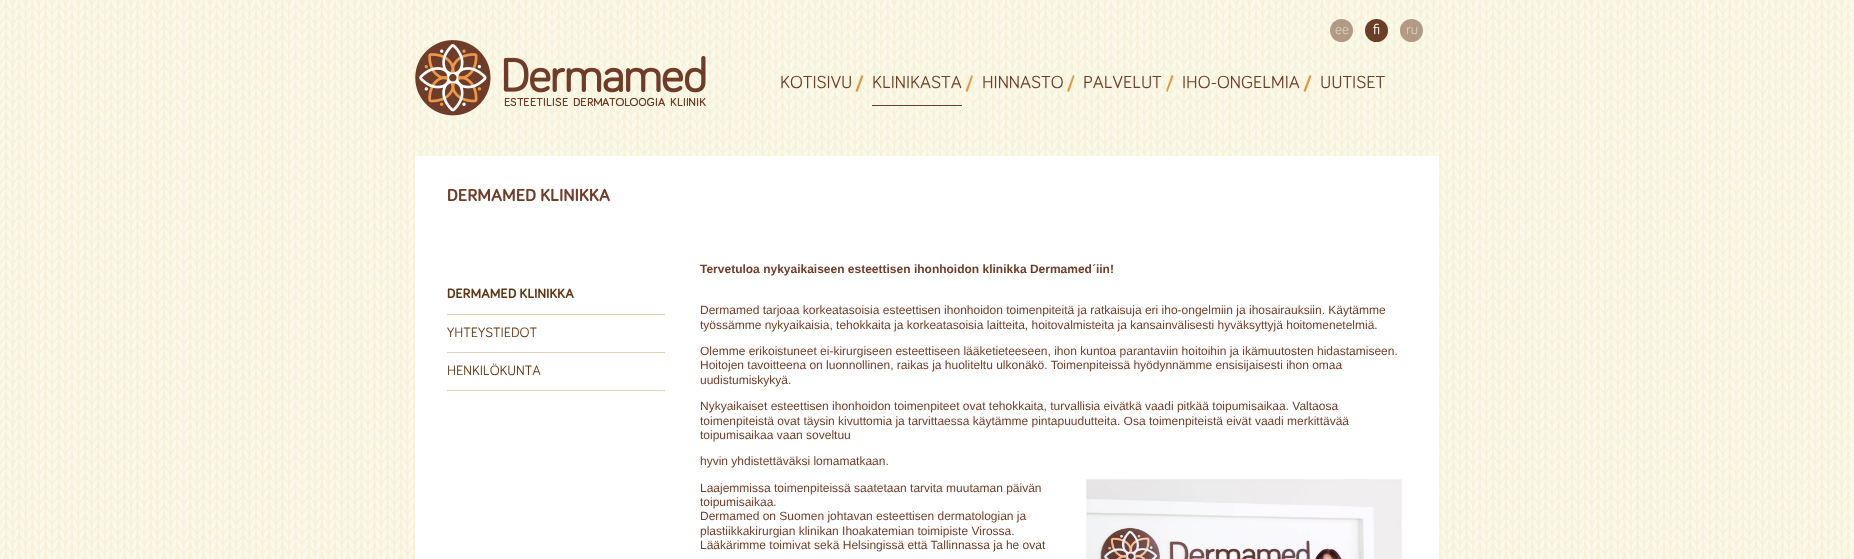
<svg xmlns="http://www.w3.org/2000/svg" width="1854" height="559">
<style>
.a{font:15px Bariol;fill:#d9ccc2}
.b{font:15px Bariol;fill:#fff}
.c{font:18px Bariol;fill:#703d29}
.d{font:bold 18px Bariol;fill:#703d29}
.e{font:bold 14px Bariol;fill:#603813}
.f{font:14px Bariol;fill:#603813}
.g{font:bold 12px Liberation Sans;fill:#703d29}
.h{font:12px Liberation Sans;fill:#703d29}
</style>
<rect width="100%" height="100%" fill="#fff"/>
<image href="1.png" x="0" y="0" width="1854" height="559"/>
<circle fill="#6c3d2780" cx="1341.5" cy="30.5" r="11.5"/>
<circle fill="#6c3d27" cx="1376.5" cy="30.5" r="11.5"/>
<circle fill="#6c3d2780" cx="1411.5" cy="30.5" r="11.5"/>
<image href="2.png" x="415" y="40" width="291" height="76"/>
<path fill="#e29842" d="M855.5 91l6-16l2 1l-6 16z"/>
<path fill="#6f3c29" d="M872 105h90v1H872z"/>
<path fill="#e29842" d="M965.5 91l6-16l1.5 1l-5.5 16z"/>
<path fill="#e29842" d="M1067 91l6-16l1.5 1l-5.5 16z"/>
<path fill="#e29842" d="M1166 91l5.5-16l2 1l-6 16z"/>
<path fill="#e29842" d="M1303.5 91l6-16l2 1l-6 16z"/>
<path fill="#fff" d="M415 156h1024v403H415z"/>
<path fill="#e0d2b5" d="M447 314h218v1H447z"/>
<path fill="#e0d2b5" d="M447 352h218v1H447z"/>
<path fill="#e0d2b5" d="M447 390h218v1H447z"/>
<image href="3.png" x="1086" y="479" width="316" height="80"/>
<text class="a" x="1335" y="34">ee</text>
<text class="b" x="1373" y="34">fi</text>
<text class="a" x="1406" y="34">ru</text>
<text class="c" x="780" y="88">KOTISIVU</text>
<text class="c" x="872" y="88">KLINIKASTA</text>
<text class="c" x="982" y="88">HINNASTO</text>
<text class="c" x="1083" y="88">PALVELUT</text>
<text class="c" x="1182" y="88">IHO-ONGELMIA</text>
<text class="c" x="1320" y="88">UUTISET</text>
<text class="d" x="447" y="201">DERMAMED KLINIKKA</text>
<text class="e" x="447" y="298">DERMAMED KLINIKKA</text>
<text class="f" x="447" y="337">YHTEYSTIEDOT</text>
<text class="f" x="447" y="375">HENKILÖKUNTA</text>
<text class="g" x="700" y="273">Tervetuloa nykyaikaiseen esteettisen ihonhoidon klinikka Dermamed´iin!</text>
<text class="h" x="700" y="314">Dermamed tarjoaa korkeatasoisia esteettisen ihonhoidon toimenpiteitä ja ratkaisuja eri iho-ongelmiin ja ihosairauksiin. Käytämme</text>
<text class="h" x="700" y="329">työssämme nykyaikaisia, tehokkaita ja korkeatasoisia laitteita, hoitovalmisteita ja kansainvälisesti hyväksyttyjä hoitomenetelmiä.</text>
<text class="h" x="700" y="355">Olemme erikoistuneet ei-kirurgiseen esteettiseen lääketieteeseen, ihon kuntoa parantaviin hoitoihin ja ikämuutosten hidastamiseen.</text>
<text class="h" x="700" y="369">Hoitojen tavoitteena on luonnollinen, raikas ja huoliteltu ulkonäkö. Toimenpiteissä hyödynnämme ensisijaisesti ihon omaa</text>
<text class="h" x="700" y="384">uudistumiskykyä.</text>
<text class="h" x="700" y="410">Nykyaikaiset esteettisen ihonhoidon toimenpiteet ovat tehokkaita, turvallisia eivätkä vaadi pitkää toipumisaikaa. Valtaosa</text>
<text class="h" x="700" y="425">toimenpiteistä ovat täysin kivuttomia ja tarvittaessa käytämme pintapuudutteita. Osa toimenpiteistä eivät vaadi merkittävää</text>
<text class="h" x="700" y="439">toipumisaikaa vaan soveltuu</text>
<text class="h" x="700" y="465">hyvin yhdistettäväksi lomamatkaan.</text>
<text class="h" x="700" y="492">Laajemmissa toimenpiteissä saatetaan tarvita muutaman päivän</text>
<text class="h" x="700" y="506">toipumisaikaa.</text>
<text class="h" x="700" y="520">Dermamed on Suomen johtavan esteettisen dermatologian ja</text>
<text class="h" x="700" y="535">plastiikkakirurgian klinikan Ihoakatemian toimipiste Virossa.</text>
<text class="h" x="700" y="549">Lääkärimme toimivat sekä Helsingissä että Tallinnassa ja he ovat</text>
</svg>
